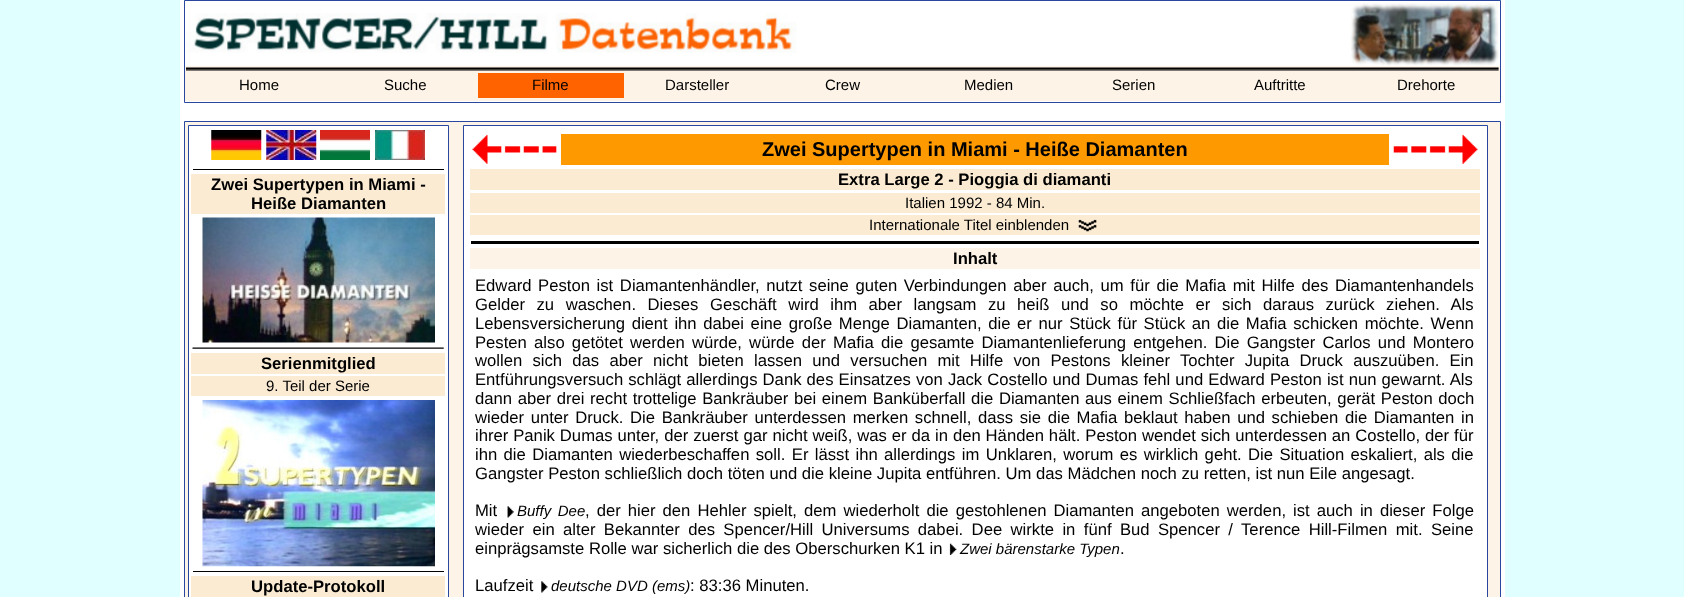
<svg xmlns="http://www.w3.org/2000/svg" width="1684" height="597">
<style>
.a{font:15px Liberation Sans;fill:#000}
.b{font:bold 16.67px Liberation Sans;fill:#000}
.c{font:bold 20px Liberation Sans;fill:#000}
.d{font:16.67px Liberation Sans;fill:#000}
.e{font:italic 15px Liberation Sans;fill:#000}
</style>
<rect width="100%" height="100%" fill="#e0ffff"/>
<path fill="#fff" d="M180 0h1325v597H180z"/>
<path fill="none" stroke="#29479f" d="M184.5 0.5h1316v102H184.5z"/>
<image href="1.png" x="186" y="13" width="611" height="40"/>
<image href="2.png" x="1350" y="3" width="149" height="63"/>
<path fill="#fdf4e7" d="M185 66h1315v35H185z"/>
<image href="3.png" x="186" y="67" width="1313" height="4"/>
<path fill="#ff6300" d="M478 73h146v25H478z"/>
<path fill="#fdf4e7" stroke="#29479f" d="M184.5 121.5h1316v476H184.5z"/>
<path fill="#fff" stroke="#29479f" d="M188.5 125.5h260v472H188.5z"/>
<image href="4.png" x="211" y="130" width="51" height="30"/>
<image href="5.png" x="266" y="130" width="51" height="30"/>
<image href="6.png" x="320" y="130" width="50" height="30"/>
<image href="7.png" x="375" y="130" width="50" height="30"/>
<path fill="#000" d="M193 169h251v1H193z"/>
<path fill="#fbebd3" d="M191 174h254v40H191z"/>
<image href="8.png" x="202" y="217" width="233" height="126"/>
<image href="9.png" x="192" y="347" width="252" height="2"/>
<path fill="#fbebd3" d="M191 353h254v21H191z"/>
<path fill="#fbebd3" d="M191 376h254v20H191z"/>
<image href="10.png" x="202" y="400" width="233" height="167"/>
<path fill="#000" d="M193 571h251v1H193z"/>
<path fill="#fbebd3" d="M191 576h254v21H191z"/>
<path fill="#fff" stroke="#29479f" d="M463.5 125.5h1024v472H463.5z"/>
<image href="11.png" x="472" y="134" width="85" height="30"/>
<path fill="#f90" d="M561 134h828v31H561z"/>
<image href="12.png" x="1393" y="134" width="85" height="30"/>
<path fill="#fbebd3" d="M470 169h1010v21H470z"/>
<path fill="#fbebd3" d="M470 193h1010v20H470z"/>
<path fill="#fbebd3" d="M470 215h1010v20H470z"/>
<image href="13.png" x="1078" y="219" width="19" height="13"/>
<path fill="#000" d="M471 241h1008v3H471z"/>
<path fill="#fdf4e7" d="M470 248h1010v21H470z"/>
<image href="14.png" x="507" y="506" width="7" height="12"/>
<image href="15.png" x="949" y="543" width="8" height="12"/>
<image href="16.png" x="541" y="581" width="7" height="12"/>
<text class="a" x="239" y="90">Home</text>
<text class="a" x="384" y="90">Suche</text>
<text class="a" x="532" y="90">Filme</text>
<text class="a" x="665" y="90">Darsteller</text>
<text class="a" x="825" y="90">Crew</text>
<text class="a" x="964" y="90">Medien</text>
<text class="a" x="1112" y="90">Serien</text>
<text class="a" x="1254" y="90">Auftritte</text>
<text class="a" x="1397" y="90">Drehorte</text>
<text class="b" x="211" y="190">Zwei Supertypen in Miami -</text>
<text class="b" x="251" y="209">Heiße Diamanten</text>
<text class="b" x="261" y="369">Serienmitglied</text>
<text class="a" x="266" y="391">9. Teil der Serie</text>
<text class="b" x="251" y="592">Update-Protokoll</text>
<text class="c" x="762" y="156">Zwei Supertypen in Miami - Heiße Diamanten</text>
<text class="b" x="838" y="185">Extra Large 2 - Pioggia di diamanti</text>
<text class="a" x="905" y="208">Italien 1992 - 84 Min.</text>
<text class="a" x="869" y="230">Internationale Titel einblenden</text>
<text class="b" x="953" y="264">Inhalt</text>
<text class="d" x="475" y="291" word-spacing="2">Edward Peston ist Diamantenhändler, nutzt seine guten Verbindungen aber auch, um für die Mafia mit Hilfe des Diamantenhandels</text>
<text class="d" x="475" y="310" word-spacing="6.9">Gelder zu waschen. Dieses Geschäft wird ihm aber langsam zu heiß und so möchte er sich daraus zurück ziehen. Als</text>
<text class="d" x="475" y="329" word-spacing="2">Lebensversicherung dient ihn dabei eine große Menge Diamanten, die er nur Stück für Stück an die Mafia schicken möchte. Wenn</text>
<text class="d" x="475" y="348" word-spacing="2.6">Pesten also getötet werden würde, würde der Mafia die gesamte Diamantenlieferung entgehen. Die Gangster Carlos und Montero</text>
<text class="d" x="475" y="366" word-spacing="5.6">wollen sich das aber nicht bieten lassen und versuchen mit Hilfe von Pestons kleiner Tochter Jupita Druck auszuüben. Ein</text>
<text class="d" x="475" y="385" word-spacing="0.5">Entführungsversuch schlägt allerdings Dank des Einsatzes von Jack Costello und Dumas fehl und Edward Peston ist nun gewarnt. Als</text>
<text class="d" x="475" y="404" word-spacing="1">dann aber drei recht trottelige Bankräuber bei einem Banküberfall die Diamanten aus einem Schließfach erbeuten, gerät Peston doch</text>
<text class="d" x="475" y="423" word-spacing="2">wieder unter Druck. Die Bankräuber unterdessen merken schnell, dass sie die Mafia beklaut haben und schieben die Diamanten in</text>
<text class="d" x="475" y="441" word-spacing="0.3">ihrer Panik Dumas unter, der zuerst gar nicht weiß, was er da in den Händen hält. Peston wendet sich unterdessen an Costello, der für</text>
<text class="d" x="475" y="460" word-spacing="1.75">ihn die Diamanten wiederbeschaffen soll. Er lässt ihn allerdings im Unklaren, worum es wirklich geht. Die Situation eskaliert, als die</text>
<text class="d" x="475" y="479">Gangster Peston schließlich doch töten und die kleine Jupita entführen. Um das Mädchen noch zu retten, ist nun Eile angesagt.</text>
<text class="d" x="475" y="516">Mit</text>
<text class="e" x="517" y="516" word-spacing="2.4">Buffy Dee</text>
<text class="d" x="585" y="516" word-spacing="2.4">, der hier den Hehler spielt, dem wiederholt die gestohlenen Diamanten angeboten werden, ist auch in dieser Folge</text>
<text class="d" x="475" y="535" word-spacing="3.75">wieder ein alter Bekannter des Spencer/Hill Universums dabei. Dee wirkte in fünf Bud Spencer / Terence Hill-Filmen mit. Seine</text>
<text class="d" x="475" y="554">einprägsamste Rolle war sicherlich die des Oberschurken K1 in</text>
<text class="e" x="960" y="554">Zwei bärenstarke Typen</text>
<text class="d" x="1120" y="554">.</text>
<text class="d" x="475" y="591">Laufzeit</text>
<text class="e" x="551" y="591">deutsche DVD (ems)</text>
<text class="d" x="690" y="591">: 83:36 Minuten.</text>
</svg>
